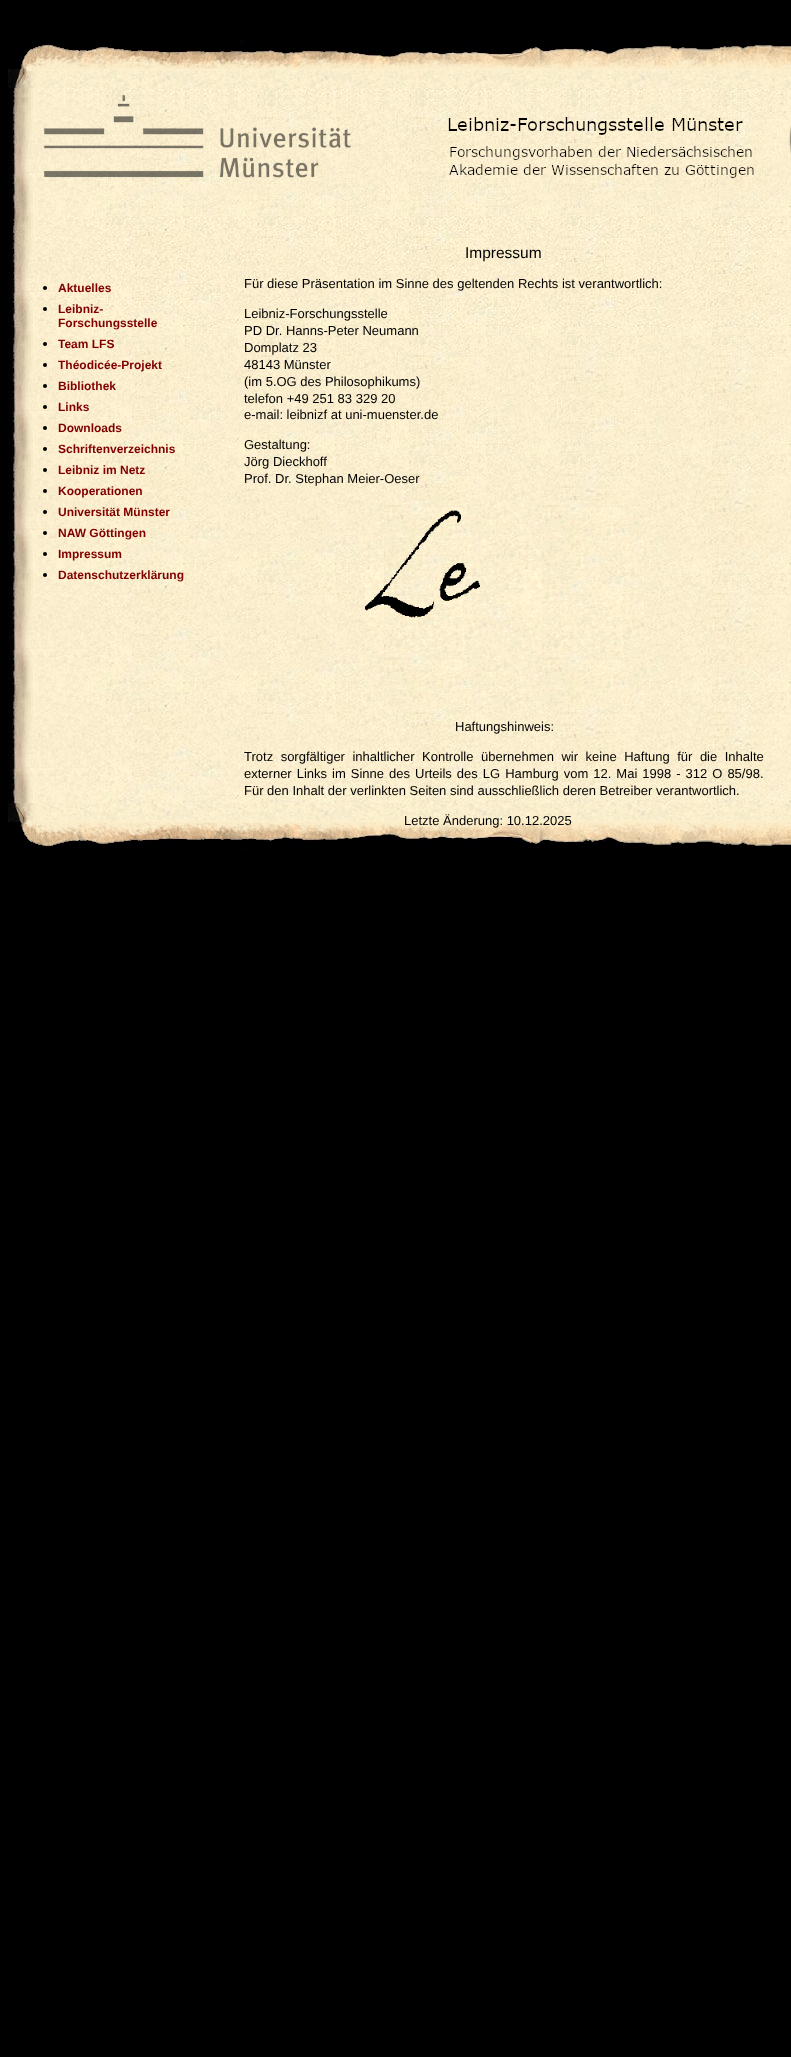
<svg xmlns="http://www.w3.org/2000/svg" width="791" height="2057">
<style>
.a{font:bold 12px Liberation Sans;fill:#800000}
.b{font:15.5px Liberation Sans;fill:#000}
.c{font:13px Liberation Sans;fill:#000}
</style>
<rect width="100%" height="100%" fill="#000"/>
<image href="1.png" x="8" y="40" width="783" height="176"/>
<image href="2.png" x="8" y="216" width="783" height="587"/>
<circle fill="#000" cx="45" cy="288" r="2"/>
<circle fill="#000" cx="45" cy="309" r="2"/>
<circle fill="#000" cx="45" cy="344" r="2"/>
<circle fill="#000" cx="45" cy="365" r="2"/>
<circle fill="#000" cx="45" cy="386" r="2"/>
<circle fill="#000" cx="45" cy="407" r="2"/>
<circle fill="#000" cx="45" cy="428" r="2"/>
<circle fill="#000" cx="45" cy="449" r="2"/>
<circle fill="#000" cx="45" cy="470" r="2"/>
<circle fill="#000" cx="45" cy="491" r="2"/>
<circle fill="#000" cx="45" cy="512" r="2"/>
<circle fill="#000" cx="45" cy="533" r="2"/>
<circle fill="#000" cx="45" cy="554" r="2"/>
<circle fill="#000" cx="45" cy="575" r="2"/>
<image href="3.png" x="365" y="501" width="279" height="205"/>
<image href="4.png" x="8" y="803" width="783" height="62"/>
<text class="a" x="58" y="292">Aktuelles</text>
<text class="a" x="58" y="313">Leibniz-</text>
<text class="a" x="58" y="327">Forschungsstelle</text>
<text class="a" x="58" y="348">Team LFS</text>
<text class="a" x="58" y="369">Théodicée-Projekt</text>
<text class="a" x="58" y="390">Bibliothek</text>
<text class="a" x="58" y="411">Links</text>
<text class="a" x="58" y="432">Downloads</text>
<text class="a" x="58" y="453">Schriftenverzeichnis</text>
<text class="a" x="58" y="474">Leibniz im Netz</text>
<text class="a" x="58" y="495">Kooperationen</text>
<text class="a" x="58" y="516">Universität Münster</text>
<text class="a" x="58" y="537">NAW Göttingen</text>
<text class="a" x="58" y="558">Impressum</text>
<text class="a" x="58" y="579">Datenschutzerklärung</text>
<text class="b" x="465" y="258">Impressum</text>
<text class="c" x="244" y="288">Für diese Präsentation im Sinne des geltenden Rechts ist verantwortlich:</text>
<text class="c" x="244" y="318">Leibniz-Forschungsstelle</text>
<text class="c" x="244" y="335">PD Dr. Hanns-Peter Neumann</text>
<text class="c" x="244" y="352">Domplatz 23</text>
<text class="c" x="244" y="369">48143 Münster</text>
<text class="c" x="244" y="386">(im 5.OG des Philosophikums)</text>
<text class="c" x="244" y="403">telefon +49 251 83 329 20</text>
<text class="c" x="244" y="419">e-mail: leibnizf at uni-muenster.de</text>
<text class="c" x="244" y="449">Gestaltung:</text>
<text class="c" x="244" y="466">Jörg Dieckhoff</text>
<text class="c" x="244" y="483">Prof. Dr. Stephan Meier-Oeser</text>
<text class="c" x="455" y="731">Haftungshinweis:</text>
<text class="c" x="244" y="761" word-spacing="3.9">Trotz sorgfältiger inhaltlicher Kontrolle übernehmen wir keine Haftung für die Inhalte</text>
<text class="c" x="244" y="778" word-spacing="1.4">externer Links im Sinne des Urteils des LG Hamburg vom 12. Mai 1998 - 312 O 85/98.</text>
<text class="c" x="244" y="795">Für den Inhalt der verlinkten Seiten sind ausschließlich deren Betreiber verantwortlich.</text>
<text class="c" x="404" y="825">Letzte Änderung: 10.12.2025</text>
</svg>
